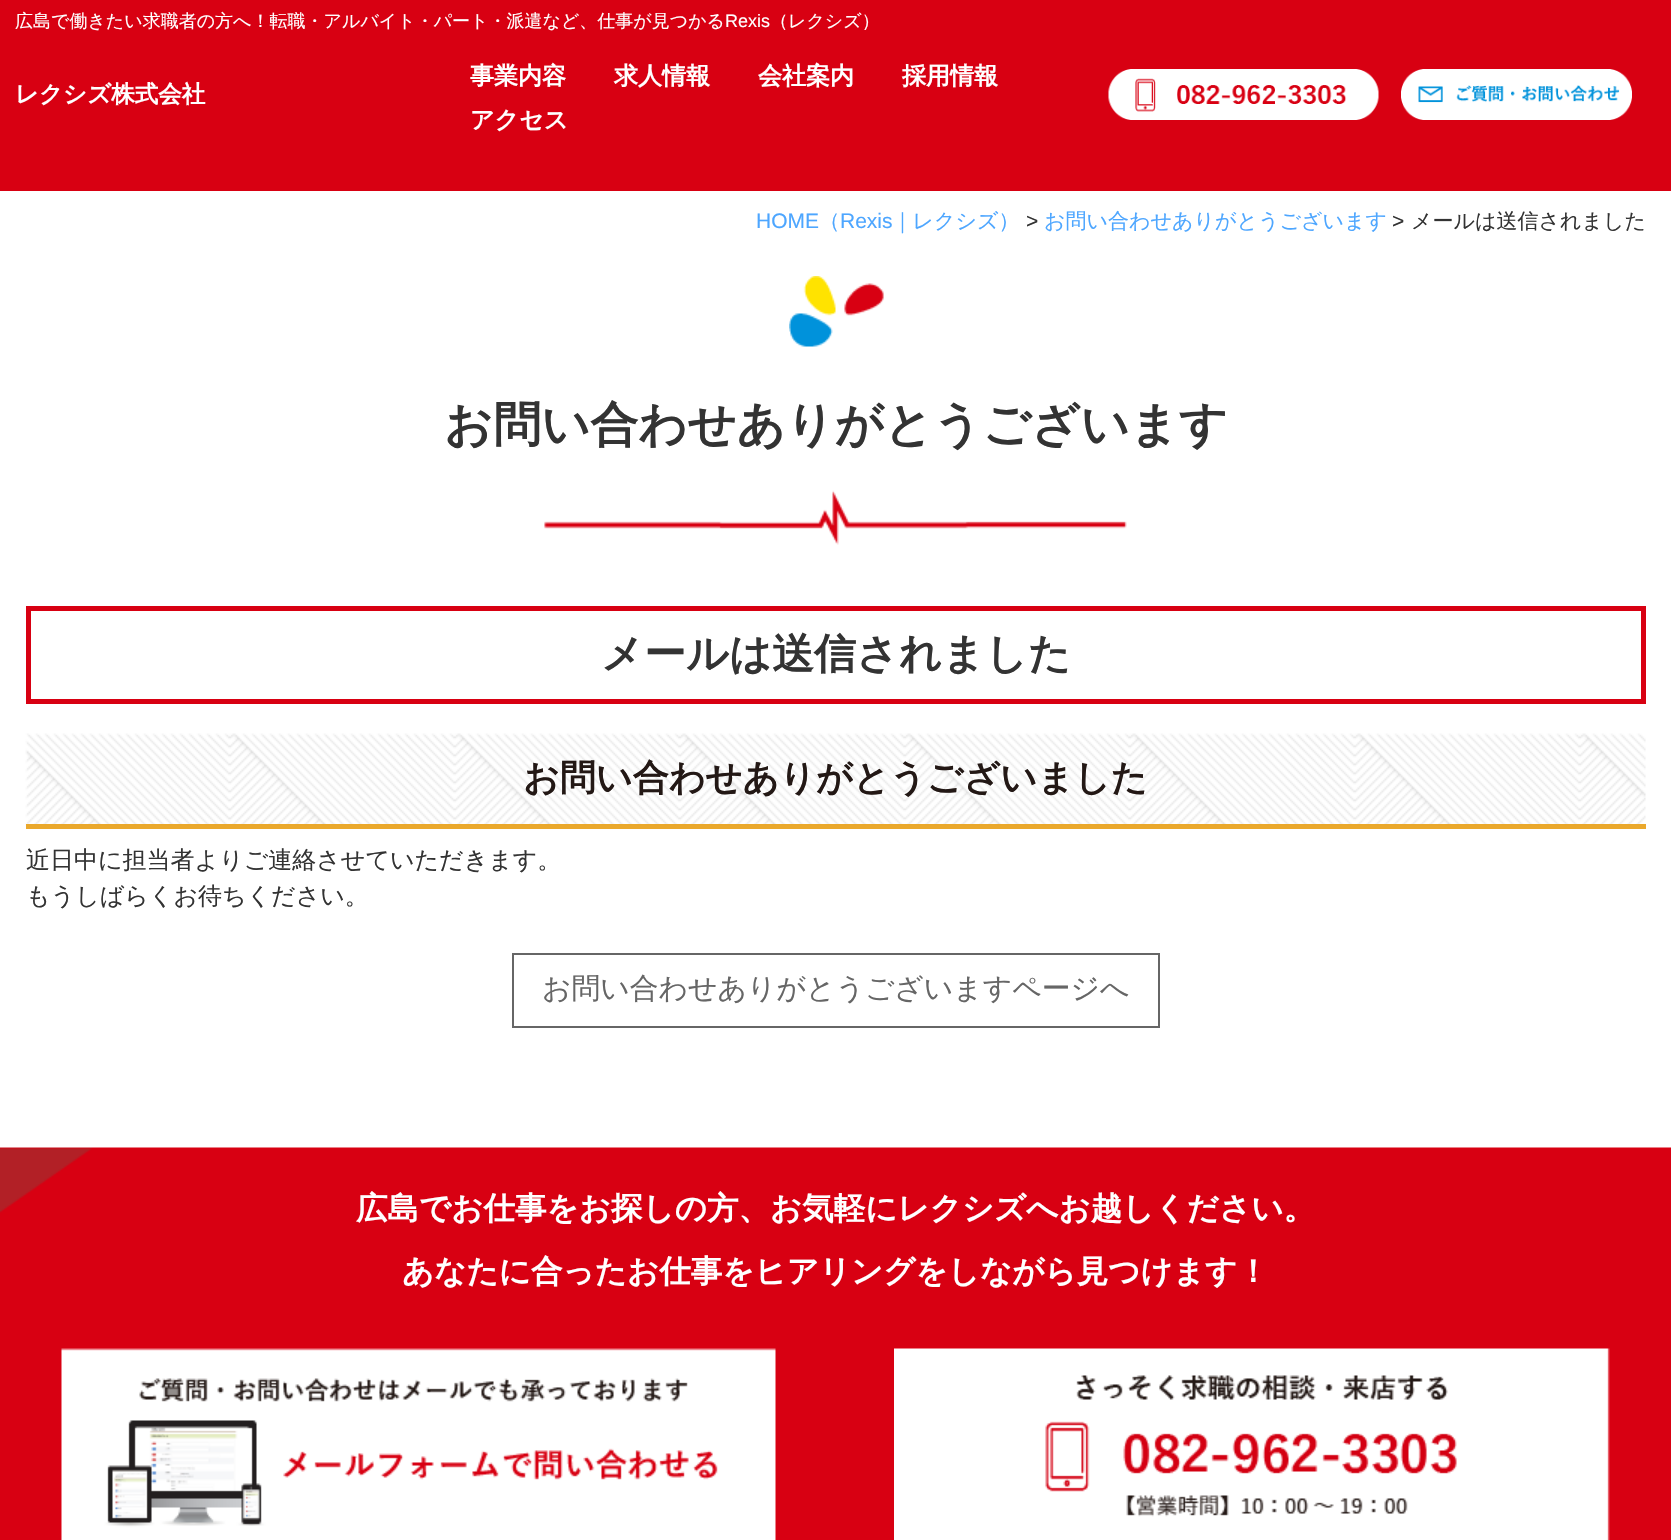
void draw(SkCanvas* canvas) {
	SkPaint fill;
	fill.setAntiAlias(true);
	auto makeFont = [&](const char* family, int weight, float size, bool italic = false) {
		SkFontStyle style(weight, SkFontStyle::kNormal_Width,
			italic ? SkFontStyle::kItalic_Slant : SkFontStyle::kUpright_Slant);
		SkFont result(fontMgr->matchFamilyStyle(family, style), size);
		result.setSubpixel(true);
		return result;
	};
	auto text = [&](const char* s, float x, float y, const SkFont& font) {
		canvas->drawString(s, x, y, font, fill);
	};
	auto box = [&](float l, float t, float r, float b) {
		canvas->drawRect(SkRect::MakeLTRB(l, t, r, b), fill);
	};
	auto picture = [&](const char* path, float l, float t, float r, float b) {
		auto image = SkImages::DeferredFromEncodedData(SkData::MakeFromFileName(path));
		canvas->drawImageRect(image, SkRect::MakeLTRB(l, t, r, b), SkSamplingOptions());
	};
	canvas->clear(0xFFFFFFFF);
	fill.setColor(0xFFD80012);
	box(0, 0, 1671, 191);
	picture("image0.png", 1108, 69, 1379, 120);
	picture("image1.png", 1401, 69, 1632, 120);
	picture("image2.png", 789, 276, 884, 347);
	picture("image3.png", 544, 490, 1127, 545);
	fill.setStyle(SkPaint::kStroke_Style);
	fill.setStrokeWidth(5);
	canvas->drawRect(SkRect::MakeLTRB(28.5f, 608.5f, 1643.5f, 701.5f), fill);
	picture("image4.png", 25, 733, 1646, 828);
	fill.setStyle(SkPaint::kFill_Style);
	fill.setColor(0xFFEAA82C);
	box(26, 824, 1646, 829);
	fill.setStyle(SkPaint::kStroke_Style);
	fill.setStrokeWidth(2);
	fill.setColor(0xFF666666);
	canvas->drawRect(SkRect::MakeLTRB(513, 954, 1159, 1027), fill);
	fill.setStyle(SkPaint::kFill_Style);
	fill.setColor(0xFFD80012);
	box(0, 1213, 1671, 1540);
	picture("image5.png", 0, 1147, 1671, 1213);
	picture("image6.png", 61, 1348, 776, 1540);
	picture("image7.png", 894, 1348, 1610, 1540);
	auto font1 = makeFont("WenQuanYi Zen Hei", 500, 18);
	fill.setColor(0xFFFFFFFF);
	text("広島で働きたい求職者の方へ！転職・アルバイト・パート・派遣など、仕事が見つかる", 15, 27, font1);
	auto font2 = makeFont("Liberation Sans", 400, 18);
	text("Rexis", 725, 27, font2);
	text("（レクシズ）", 770, 27, font1);
	auto font3 = makeFont("WenQuanYi Zen Hei", 700, 23.5f);
	text("レクシズ株式会社", 15, 102, font3);
	auto font4 = makeFont("WenQuanYi Zen Hei", 700, 24);
	text("事業内容", 470, 84, font4);
	text("求人情報", 614, 84, font4);
	text("会社案内", 758, 84, font4);
	text("採用情報", 902, 84, font4);
	text("アクセス", 470, 128, font4);
	auto font5 = makeFont("Liberation Sans", 400, 21);
	fill.setColor(0xFF4DA6FF);
	text("HOME", 756, 228, font5);
	auto font6 = makeFont("WenQuanYi Zen Hei", 500, 21);
	text("（", 819, 228, font6);
	text("Rexis", 840, 228, font5);
	text("｜レクシズ）", 892, 228, font6);
	fill.setColor(0xFF333333);
	text(">", 1026, 228, font5);
	fill.setColor(0xFF4DA6FF);
	text("お問い合わせありがとうございます", 1044, 228, font6);
	fill.setColor(0xFF333333);
	text(">", 1392, 228, font5);
	text("メールは送信されました", 1411, 228, font6);
	auto font7 = makeFont("WenQuanYi Zen Hei", 700, 48);
	text("お問い合わせありがとうございます", 444, 441, font7);
	auto font8 = makeFont("WenQuanYi Zen Hei", 700, 42);
	text("メールは送信されました", 601, 668, font8);
	auto font9 = makeFont("WenQuanYi Zen Hei", 700, 36);
	fill.setColor(0xFF231815);
	text("お問い合わせありがとうございました", 523, 790, font9);
	auto font10 = makeFont("WenQuanYi Zen Hei", 500, 24);
	fill.setColor(0xFF333333);
	text("近日中に担当者よりご連絡させていただきます。", 26, 868, font10);
	text("もうしばらくお待ちください。", 26, 904, font10);
	auto font11 = makeFont("WenQuanYi Zen Hei", 500, 28.8f);
	fill.setColor(0xFF666666);
	text("お問い合わせありがとうございますページへ", 542, 998, font11);
	auto font12 = makeFont("WenQuanYi Zen Hei", 700, 31.5f);
	fill.setColor(0xFFFFFFFF);
	text("広島でお仕事をお探しの方、お気軽にレクシズへお越しください。", 356, 1219, font12);
	text("あなたに合ったお仕事をヒアリングをしながら見つけます！", 402, 1282, font12);
}
